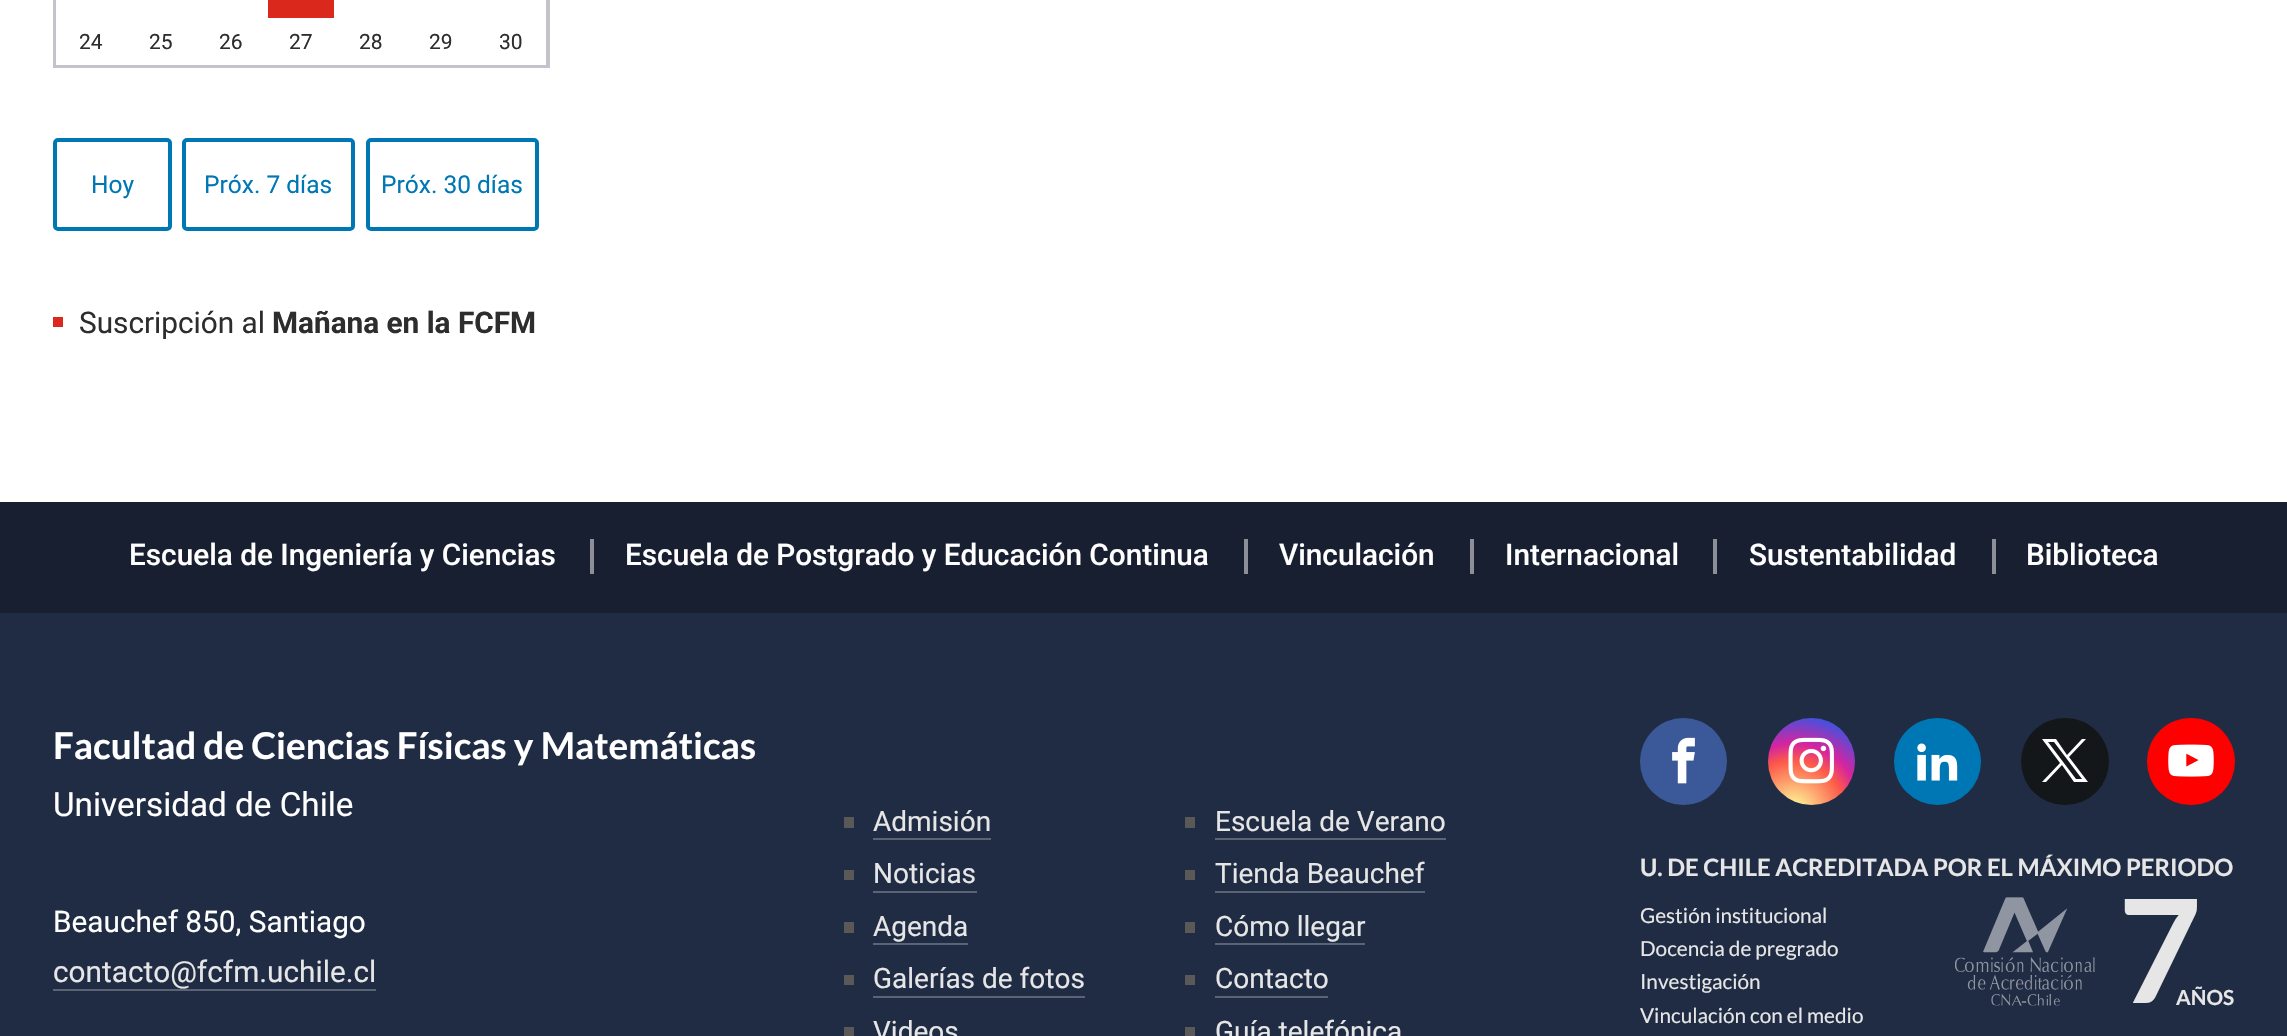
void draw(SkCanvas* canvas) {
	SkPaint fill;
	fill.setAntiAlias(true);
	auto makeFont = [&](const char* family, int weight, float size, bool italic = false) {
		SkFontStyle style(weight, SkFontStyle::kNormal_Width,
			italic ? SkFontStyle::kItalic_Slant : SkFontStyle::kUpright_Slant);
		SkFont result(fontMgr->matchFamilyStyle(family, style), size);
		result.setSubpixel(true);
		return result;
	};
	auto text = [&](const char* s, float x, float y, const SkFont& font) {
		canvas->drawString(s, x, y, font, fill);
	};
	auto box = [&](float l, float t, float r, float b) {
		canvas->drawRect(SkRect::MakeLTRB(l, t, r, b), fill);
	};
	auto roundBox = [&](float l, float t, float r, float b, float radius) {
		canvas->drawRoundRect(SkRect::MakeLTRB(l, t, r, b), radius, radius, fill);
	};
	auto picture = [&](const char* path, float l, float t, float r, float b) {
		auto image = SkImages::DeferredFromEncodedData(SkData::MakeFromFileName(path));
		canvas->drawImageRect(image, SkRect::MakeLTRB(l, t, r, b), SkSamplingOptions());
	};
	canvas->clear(0xFFFFFFFF);
	fill.setStyle(SkPaint::kStroke_Style);
	fill.setStrokeWidth(4);
	fill.setColor(0xFFC3C3CB);
	canvas->drawRect(SkRect::MakeLTRB(55, -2, 548, 66), fill);
	fill.setStyle(SkPaint::kFill_Style);
	fill.setColor(0xFFFFFFFF);
	box(56, 0, 546, 65);
	fill.setColor(0xFFDA291C);
	box(268, 0, 334, 18);
	fill.setStyle(SkPaint::kStroke_Style);
	fill.setColor(0xFF0077B5);
	canvas->drawRoundRect(SkRect::MakeLTRB(55, 140, 170, 229), 3, 3, fill);
	canvas->drawRoundRect(SkRect::MakeLTRB(184, 140, 353, 229), 3, 3, fill);
	canvas->drawRoundRect(SkRect::MakeLTRB(368, 140, 537, 229), 3, 3, fill);
	fill.setStyle(SkPaint::kFill_Style);
	fill.setColor(0xFFDA291C);
	box(53, 317, 63, 327);
	fill.setColor(0xFF202C44);
	box(0, 613, 2287, 1036);
	fill.setColor(0xFF181F31);
	box(0, 502, 2287, 613);
	fill.setColor(0xFF8C8F98);
	box(590, 539, 594, 574);
	box(1244, 539, 1248, 574);
	box(1470, 539, 1474, 574);
	box(1713, 539, 1717, 574);
	box(1992, 539, 1996, 574);
	fill.setColor(0xFF5B6475);
	box(53, 989, 376, 991);
	fill.setColor(0xFF5B5858);
	box(844, 817, 854, 828);
	fill.setColor(0xFF5B6475);
	box(873, 838, 991, 840);
	fill.setColor(0xFF5B5858);
	box(1185, 817, 1195, 828);
	fill.setColor(0xFF5B6475);
	box(1215, 838, 1446, 840);
	fill.setColor(0xFF5B5858);
	box(844, 870, 854, 880);
	fill.setColor(0xFF5B6475);
	box(873, 891, 977, 893);
	fill.setColor(0xFF5B5858);
	box(1185, 870, 1195, 880);
	fill.setColor(0xFF5B6475);
	box(1215, 891, 1425, 893);
	fill.setColor(0xFF5B5858);
	box(844, 922, 854, 933);
	fill.setColor(0xFF5B6475);
	box(873, 943, 968, 945);
	fill.setColor(0xFF5B5858);
	box(1185, 922, 1195, 933);
	fill.setColor(0xFF5B6475);
	box(1215, 943, 1365, 945);
	fill.setColor(0xFF5B5858);
	box(844, 975, 854, 985);
	fill.setColor(0xFF5B6475);
	box(873, 996, 1085, 998);
	fill.setColor(0xFF5B5858);
	box(1185, 975, 1195, 985);
	fill.setColor(0xFF5B6475);
	box(1215, 996, 1328, 998);
	fill.setColor(0xFF5B5858);
	box(844, 1027, 854, 1036);
	box(1185, 1027, 1195, 1036);
	fill.setColor(0xFF3B5998);
	canvas->drawCircle(1683.5f, 761.5f, 43.5f, fill);
	picture("image0.png", 1672, 737, 1695, 784);
	{
		const SkColor colors[] = {0xFFFDF497, 0xFFFDF497, 0xFFFD5949, 0xFFD6249F, 0xFF285AEB};
		const float stops[] = {0, 0.05f, 0.45f, 0.6f, 0.9f};
		fill.setShader(SkGradientShader::MakeRadial({1794, 811}, 112, colors, stops, 5, SkTileMode::kClamp));
		fill.setAlpha(255);
	}
	canvas->drawCircle(1811.5f, 761.5f, 43.5f, fill);
	picture("image1.png", 1788, 737, 1834, 784);
	fill.setShader(nullptr);
	fill.setColor(0xFF0077B5);
	canvas->drawCircle(1937.5f, 761.5f, 43.5f, fill);
	picture("image2.png", 1917, 743, 1958, 781);
	fill.setColor(0xFF14171A);
	roundBox(2021, 718, 2109, 805, 43.5f);
	fill.setColor(0xFFFFFFFF);
	canvas->drawPath(SkPathBuilder().moveTo(2042, 739).lineTo(2060, 763).lineTo(2042, 782).lineTo(2046, 782).lineTo(2062, 765).lineTo(2074, 782).lineTo(2088, 782).lineTo(2069, 757).lineTo(2086, 739).lineTo(2082, 739).lineTo(2067, 755).lineTo(2056, 739).close().moveTo(2048, 742).lineTo(2054, 742).lineTo(2082, 779).lineTo(2076, 779).close().detach(), fill);
	fill.setColor(0xFFFF0000);
	roundBox(2147, 718, 2235, 805, 43.5f);
	picture("image3.png", 2168, 744, 2214, 777);
	picture("image4.png", 1955, 897, 2095, 1006);
	auto font1 = makeFont("Roboto", 400, 21);
	fill.setColor(0xFF2D2D2D);
	text("24", 79, 49, font1);
	text("25", 149, 49, font1);
	text("26", 219, 49, font1);
	text("27", 289, 49, font1);
	text("28", 359, 49, font1);
	text("29", 429, 49, font1);
	text("30", 499, 49, font1);
	auto font2 = makeFont("Roboto", 400, 24.5f);
	fill.setColor(0xFF0077B5);
	text("Hoy", 91, 193, font2);
	text("Próx. 7 días", 204, 193, font2);
	text("Próx. 30 días", 381, 193, font2);
	auto font3 = makeFont("Roboto", 400, 29.75f);
	fill.setColor(0xFF2D2D2D);
	text("Suscripción al", 79, 333, font3);
	auto font4 = makeFont("Roboto", 700, 29.75f);
	text("Mañana en la FCFM", 272, 333, font4);
	auto font5 = makeFont("Roboto", 500, 29.75f);
	fill.setColor(0xFFFFFFFF);
	text("Escuela de Ingeniería y Ciencias", 129, 565, font5);
	text("Escuela de Postgrado y Educación Continua", 625, 565, font5);
	text("Vinculación", 1279, 565, font5);
	text("Internacional", 1505, 565, font5);
	text("Sustentabilidad", 1749, 565, font5);
	text("Biblioteca", 2026, 565, font5);
	auto font6 = makeFont("Lato", 700, 36.9f);
	text("Facultad de Ciencias Físicas y Matemáticas", 53, 759, font6);
	auto font7 = makeFont("Roboto", 400, 33.25f);
	text("Universidad de Chile", 53, 816, font7);
	text("Beauchef 850, Santiago", 53, 932, font3);
	fill.setColor(0xFFE6E6E6);
	text("contacto@fcfm.uchile.cl", 53, 982, font3);
	auto font8 = makeFont("Roboto", 400, 28);
	text("Admisión", 873, 831, font8);
	text("Escuela de Verano", 1215, 831, font8);
	text("Noticias", 873, 883, font8);
	text("Tienda Beauchef", 1215, 883, font8);
	text("Agenda", 873, 936, font8);
	text("Cómo llegar", 1215, 936, font8);
	text("Galerías de fotos", 873, 988, font8);
	text("Contacto", 1215, 988, font8);
	text("Videos", 873, 1041, font8);
	text("Guía telefónica", 1215, 1041, font8);
	auto font9 = makeFont("Lato", 700, 23.8f);
	text("U. DE CHILE ACREDITADA POR EL MÁXIMO PERIODO", 1640, 876, font9);
	auto font10 = makeFont("Lato", 400, 20.75f);
	text("Gestión institucional", 1640, 923, font10);
	text("Docencia de pregrado", 1640, 956, font10);
	text("Investigación", 1640, 989, font10);
	text("Vinculación con el medio", 1640, 1023, font10);
	auto font11 = makeFont("Lato", 700, 144);
	text("7", 2118, 1003, font11);
	auto font12 = makeFont("Lato", 700, 20.75f);
	text("AÑOS", 2176, 1005, font12);
}
